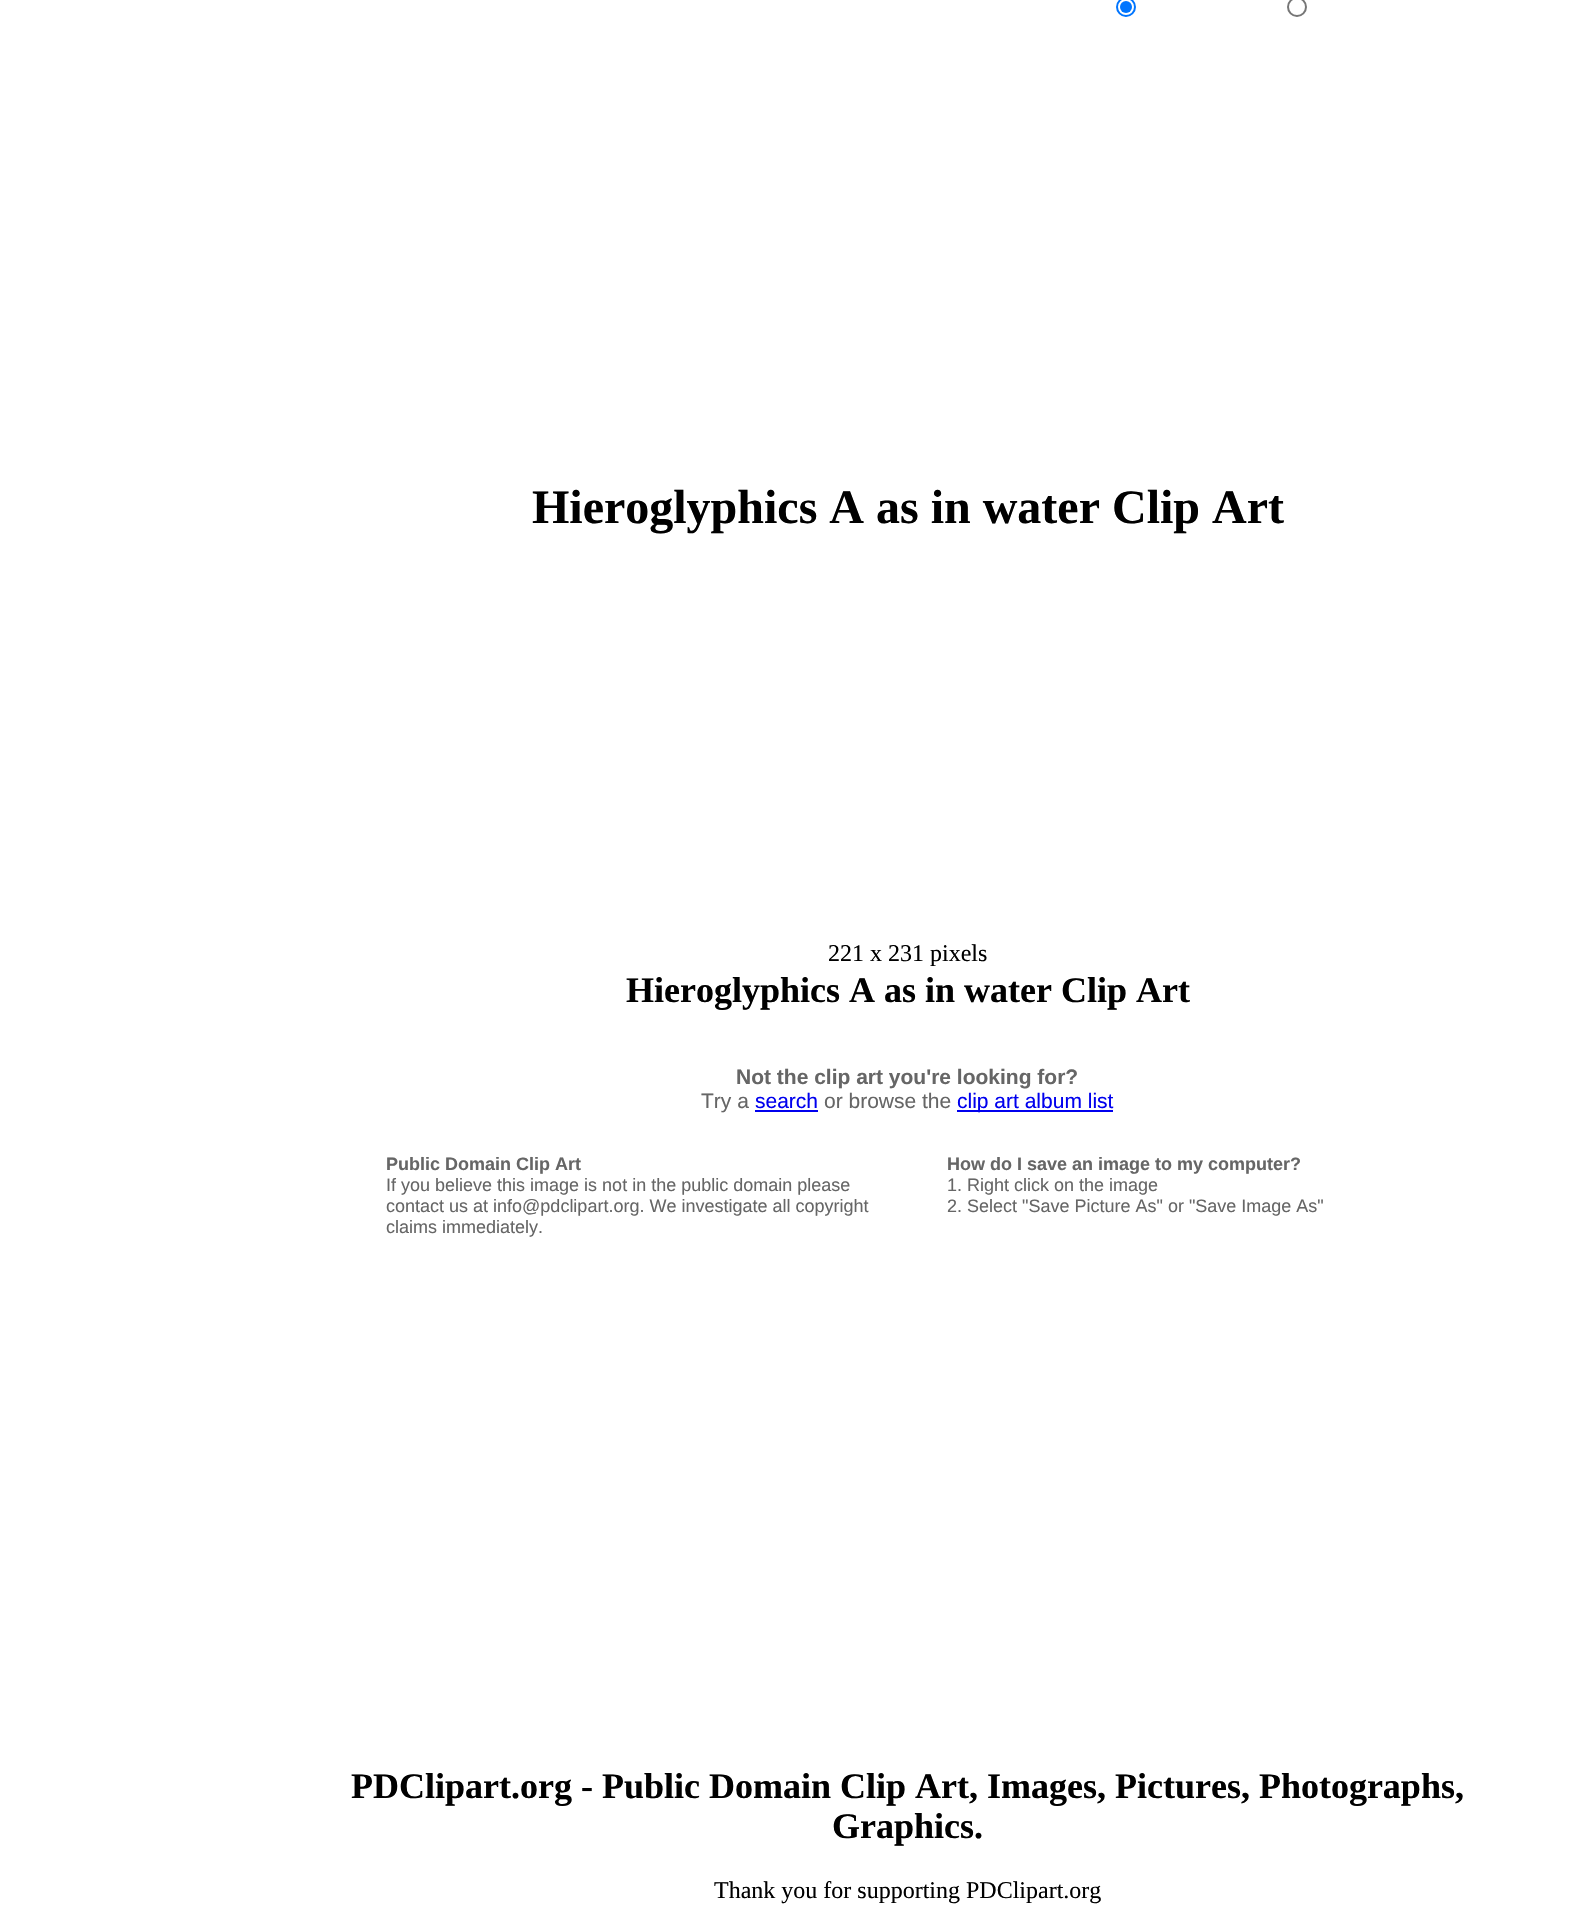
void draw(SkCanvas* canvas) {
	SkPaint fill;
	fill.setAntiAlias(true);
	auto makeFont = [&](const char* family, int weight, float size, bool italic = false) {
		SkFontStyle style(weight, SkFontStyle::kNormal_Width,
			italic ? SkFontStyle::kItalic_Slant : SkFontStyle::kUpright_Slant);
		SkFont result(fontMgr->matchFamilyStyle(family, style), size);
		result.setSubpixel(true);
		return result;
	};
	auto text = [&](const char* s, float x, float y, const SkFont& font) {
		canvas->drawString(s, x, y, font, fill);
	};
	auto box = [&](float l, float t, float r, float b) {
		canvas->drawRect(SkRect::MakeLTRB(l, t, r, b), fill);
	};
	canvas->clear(0xFFFFFFFF);
	fill.setStyle(SkPaint::kStroke_Style);
	fill.setStrokeWidth(2);
	fill.setColor(0xFF0075FF);
	canvas->drawCircle(1126, 7, 9, fill);
	fill.setStyle(SkPaint::kFill_Style);
	canvas->drawCircle(1126, 7, 6, fill);
	fill.setStyle(SkPaint::kStroke_Style);
	fill.setColor(0xFF767676);
	canvas->drawCircle(1297, 7, 9, fill);
	fill.setStyle(SkPaint::kFill_Style);
	fill.setColor(0xFF0000EE);
	box(755, 1110, 818, 1112);
	box(957, 1110, 1113, 1112);
	auto font1 = makeFont("Liberation Serif", 700, 48);
	fill.setColor(0xFF000000);
	text("Hieroglyphics A as in water Clip Art", 532, 523, font1);
	auto font2 = makeFont("Liberation Serif", 400, 24);
	text("221 x 231 pixels", 828, 961, font2);
	auto font3 = makeFont("Liberation Serif", 700, 36);
	text("Hieroglyphics A as in water Clip Art", 626, 1002, font3);
	auto font4 = makeFont("Liberation Sans", 700, 21);
	fill.setColor(0xFF666666);
	text("Not the clip art you're looking for?", 736, 1084, font4);
	auto font5 = makeFont("Liberation Sans", 400, 21);
	text("Try a", 701, 1108, font5);
	fill.setColor(0xFF0000EE);
	text("search", 755, 1108, font5);
	fill.setColor(0xFF666666);
	text("or browse the", 824, 1108, font5);
	fill.setColor(0xFF0000EE);
	text("clip art album list", 957, 1108, font5);
	auto font6 = makeFont("Liberation Sans", 700, 18);
	fill.setColor(0xFF666666);
	text("Public Domain Clip Art", 386, 1170, font6);
	auto font7 = makeFont("Liberation Sans", 400, 18);
	text("If you believe this image is not in the public domain please", 386, 1191, font7);
	text("contact us at info@pdclipart.org. We investigate all copyright", 386, 1212, font7);
	text("claims immediately.", 386, 1233, font7);
	text("How do I save an image to my computer?", 947, 1170, font6);
	text("1. Right click on the image", 947, 1191, font7);
	text("2. Select \"Save Picture As\" or \"Save Image As\"", 947, 1212, font7);
	fill.setColor(0xFF000000);
	text("PDClipart.org - Public Domain Clip Art, Images, Pictures, Photographs,", 351, 1798, font3);
	text("Graphics.", 832, 1838, font3);
	text("Thank you for supporting PDClipart.org", 714, 1898, font2);
}
